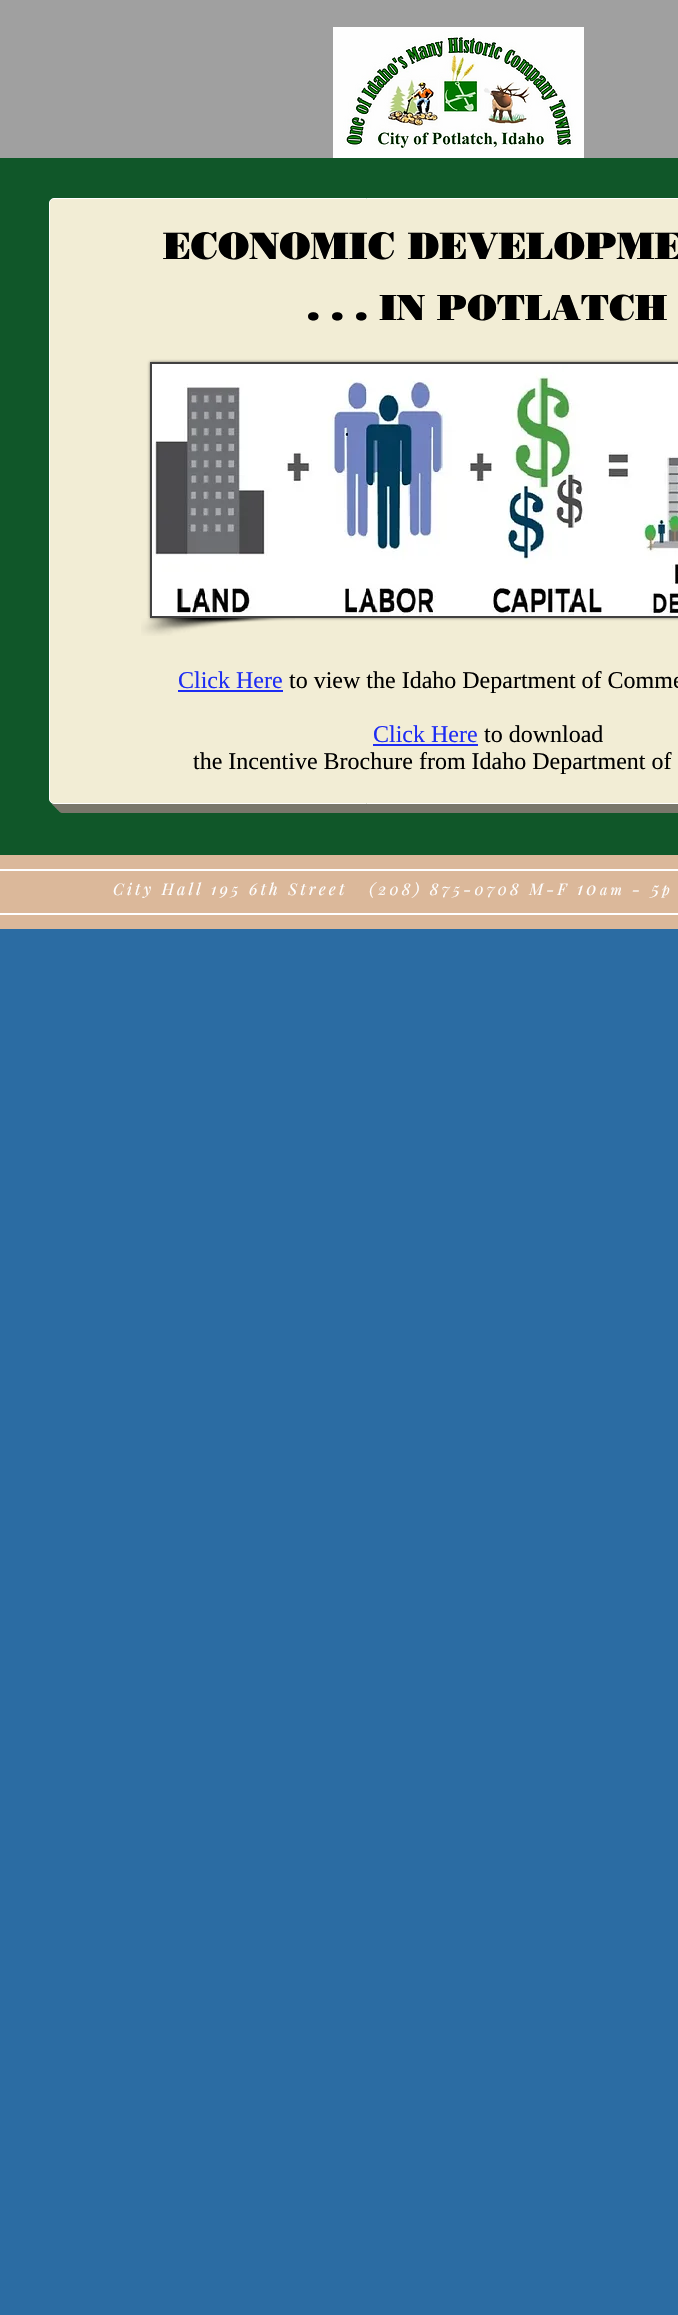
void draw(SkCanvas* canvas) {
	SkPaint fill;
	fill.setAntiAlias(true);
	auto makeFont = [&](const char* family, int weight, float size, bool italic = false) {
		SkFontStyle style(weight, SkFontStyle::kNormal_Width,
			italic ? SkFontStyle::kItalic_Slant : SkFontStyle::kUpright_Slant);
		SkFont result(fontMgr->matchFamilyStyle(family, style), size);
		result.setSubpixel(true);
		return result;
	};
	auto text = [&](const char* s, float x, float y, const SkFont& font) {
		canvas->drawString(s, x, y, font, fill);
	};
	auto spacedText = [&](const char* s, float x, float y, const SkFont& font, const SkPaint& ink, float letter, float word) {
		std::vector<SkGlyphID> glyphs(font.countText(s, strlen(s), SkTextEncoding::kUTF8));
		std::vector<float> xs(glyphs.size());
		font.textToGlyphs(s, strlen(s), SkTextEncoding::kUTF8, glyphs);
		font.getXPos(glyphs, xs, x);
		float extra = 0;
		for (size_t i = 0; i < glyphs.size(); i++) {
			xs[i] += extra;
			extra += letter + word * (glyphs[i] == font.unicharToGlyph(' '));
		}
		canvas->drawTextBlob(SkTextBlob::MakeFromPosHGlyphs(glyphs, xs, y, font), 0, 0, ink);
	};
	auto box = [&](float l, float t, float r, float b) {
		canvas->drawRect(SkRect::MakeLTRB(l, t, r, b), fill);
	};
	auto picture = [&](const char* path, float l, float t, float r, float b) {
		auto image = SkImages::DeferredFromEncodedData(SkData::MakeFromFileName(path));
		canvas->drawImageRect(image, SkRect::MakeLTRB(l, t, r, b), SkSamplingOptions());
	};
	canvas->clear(0xFF2B6CA3);
	fill.setColor(0xFFA0A0A0);
	box(0, 0, 678, 158);
	picture("image0.png", 333, 27, 584, 158);
	fill.setColor(0xFF105729);
	box(0, 158, 678, 855);
	fill.setColor(0xFF79776B);
	canvas->drawPath(SkPathBuilder().moveTo(58, 804).lineTo(58, 808).cubicTo(58, 811, 60, 813, 63, 813).lineTo(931, 813).cubicTo(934, 813, 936, 811, 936, 808).lineTo(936, 212).cubicTo(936, 209, 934, 207, 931, 207).lineTo(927, 207).lineTo(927, 799).cubicTo(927, 802, 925, 804, 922, 804).close().detach(), fill);
	canvas->drawPath(SkPathBuilder().moveTo(56, 804).lineTo(56, 806).cubicTo(56, 809, 58, 811, 61, 811).lineTo(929, 811).cubicTo(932, 811, 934, 809, 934, 806).lineTo(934, 210).cubicTo(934, 207, 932, 205, 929, 205).lineTo(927, 205).lineTo(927, 799).cubicTo(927, 802, 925, 804, 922, 804).close().detach(), fill);
	canvas->drawPath(SkPathBuilder().moveTo(54, 804).cubicTo(54, 807, 56, 809, 59, 809).lineTo(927, 809).cubicTo(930, 809, 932, 807, 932, 804).lineTo(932, 208).cubicTo(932, 205, 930, 203, 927, 203).lineTo(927, 799).cubicTo(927, 802, 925, 804, 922, 804).close().detach(), fill);
	canvas->drawPath(SkPathBuilder().moveTo(52, 804).cubicTo(53, 806, 55, 807, 57, 807).lineTo(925, 807).cubicTo(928, 807, 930, 805, 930, 802).lineTo(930, 206).cubicTo(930, 204, 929, 202, 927, 201).lineTo(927, 799).cubicTo(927, 802, 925, 804, 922, 804).close().detach(), fill);
	canvas->drawPath(SkPathBuilder().moveTo(51, 803).cubicTo(52, 804, 53, 805, 55, 805).lineTo(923, 805).cubicTo(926, 805, 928, 803, 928, 800).lineTo(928, 204).cubicTo(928, 202, 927, 201, 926, 200).cubicTo(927, 201, 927, 202, 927, 203).lineTo(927, 799).cubicTo(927, 802, 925, 804, 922, 804).lineTo(54, 804).cubicTo(53, 804, 52, 804, 51, 803).close().detach(), fill);
	fill.setColor(0xFFF2EDD5);
	canvas->drawRoundRect(SkRect::MakeLTRB(49.5f, 198.5f, 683.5f, 803.5f), 4.5f, 4.5f, fill);
	fill.setStyle(SkPaint::kStroke_Style);
	fill.setStrokeWidth(1);
	fill.setColor(0xFFFFFFFF);
	canvas->drawRoundRect(SkRect::MakeLTRB(49.5f, 198.5f, 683.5f, 803.5f), 4.5f, 4.5f, fill);
	fill.setStyle(SkPaint::kFill_Style);
	fill.setColor(0x80000000);
	fill.setMaskFilter(SkMaskFilter::MakeBlur(kNormal_SkBlurStyle, 1.5f));
	canvas->drawRect(SkRect::MakeLTRB(150, 362, 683, 618), fill);
	fill.setMaskFilter(nullptr);
	fill.setColor(0xFF414141);
	box(150, 362, 678, 618);
	picture("image1.png", 152, 364, 678, 616);
	picture("image2.png", 141, 618, 295, 636);
	fill.setColor(0xFF1D2CF3);
	box(178, 690, 283, 692);
	box(373, 744, 478, 746);
	fill.setColor(0xFFDBB89A);
	box(0, 855, 678, 929);
	fill.setColor(0xFFFFFFFF);
	box(0, 869, 678, 871);
	box(0, 913, 678, 915);
	auto font1 = makeFont("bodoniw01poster", 900, 38);
	fill.setColor(0xFF000000);
	text("ECONOMIC DEVELOPME", 163, 259, font1);
	auto font2 = makeFont("Liberation Serif", 400, 24);
	fill.setColor(0xFF1D2CF3);
	text("Click Here", 178, 688, font2);
	fill.setColor(0xFF000000);
	text("to view the Idaho Department of Comme", 289, 688, font2);
	fill.setColor(0xFF1D2CF3);
	text("Click Here", 373, 742, font2);
	fill.setColor(0xFF000000);
	text("to download", 484, 742, font2);
	text("the Incentive Brochure from Idaho Department of", 193, 769, font2);
	auto font3 = makeFont("bodoniw01poster", 900, 36);
	text(". . . IN POTLATCH", 307, 320, font3);
	auto font4 = makeFont("Playfair Display", 400, 16, true);
	fill.setColor(0xFFFFFFFF);
	spacedText("City Hall 195 6th Street   (208) 875-0708 M-F", 113, 895, font4, fill, 3.2f, 0);
	auto font5 = makeFont("Playfair Display", 400, 18, true);
	spacedText("10", 577, 895, font5, fill, 3.2f, 0);
	auto font6 = makeFont("Playfair Display", 400, 14, true);
	spacedText("am", 600, 895, font6, fill, 3.2f, 0);
	spacedText("-", 632, 895, font4, fill, 3.2f, 0);
	spacedText("5", 651, 895, font5, fill, 3.2f, 0);
	spacedText("p", 662, 895, font6, fill, 3.2f, 0);
}
